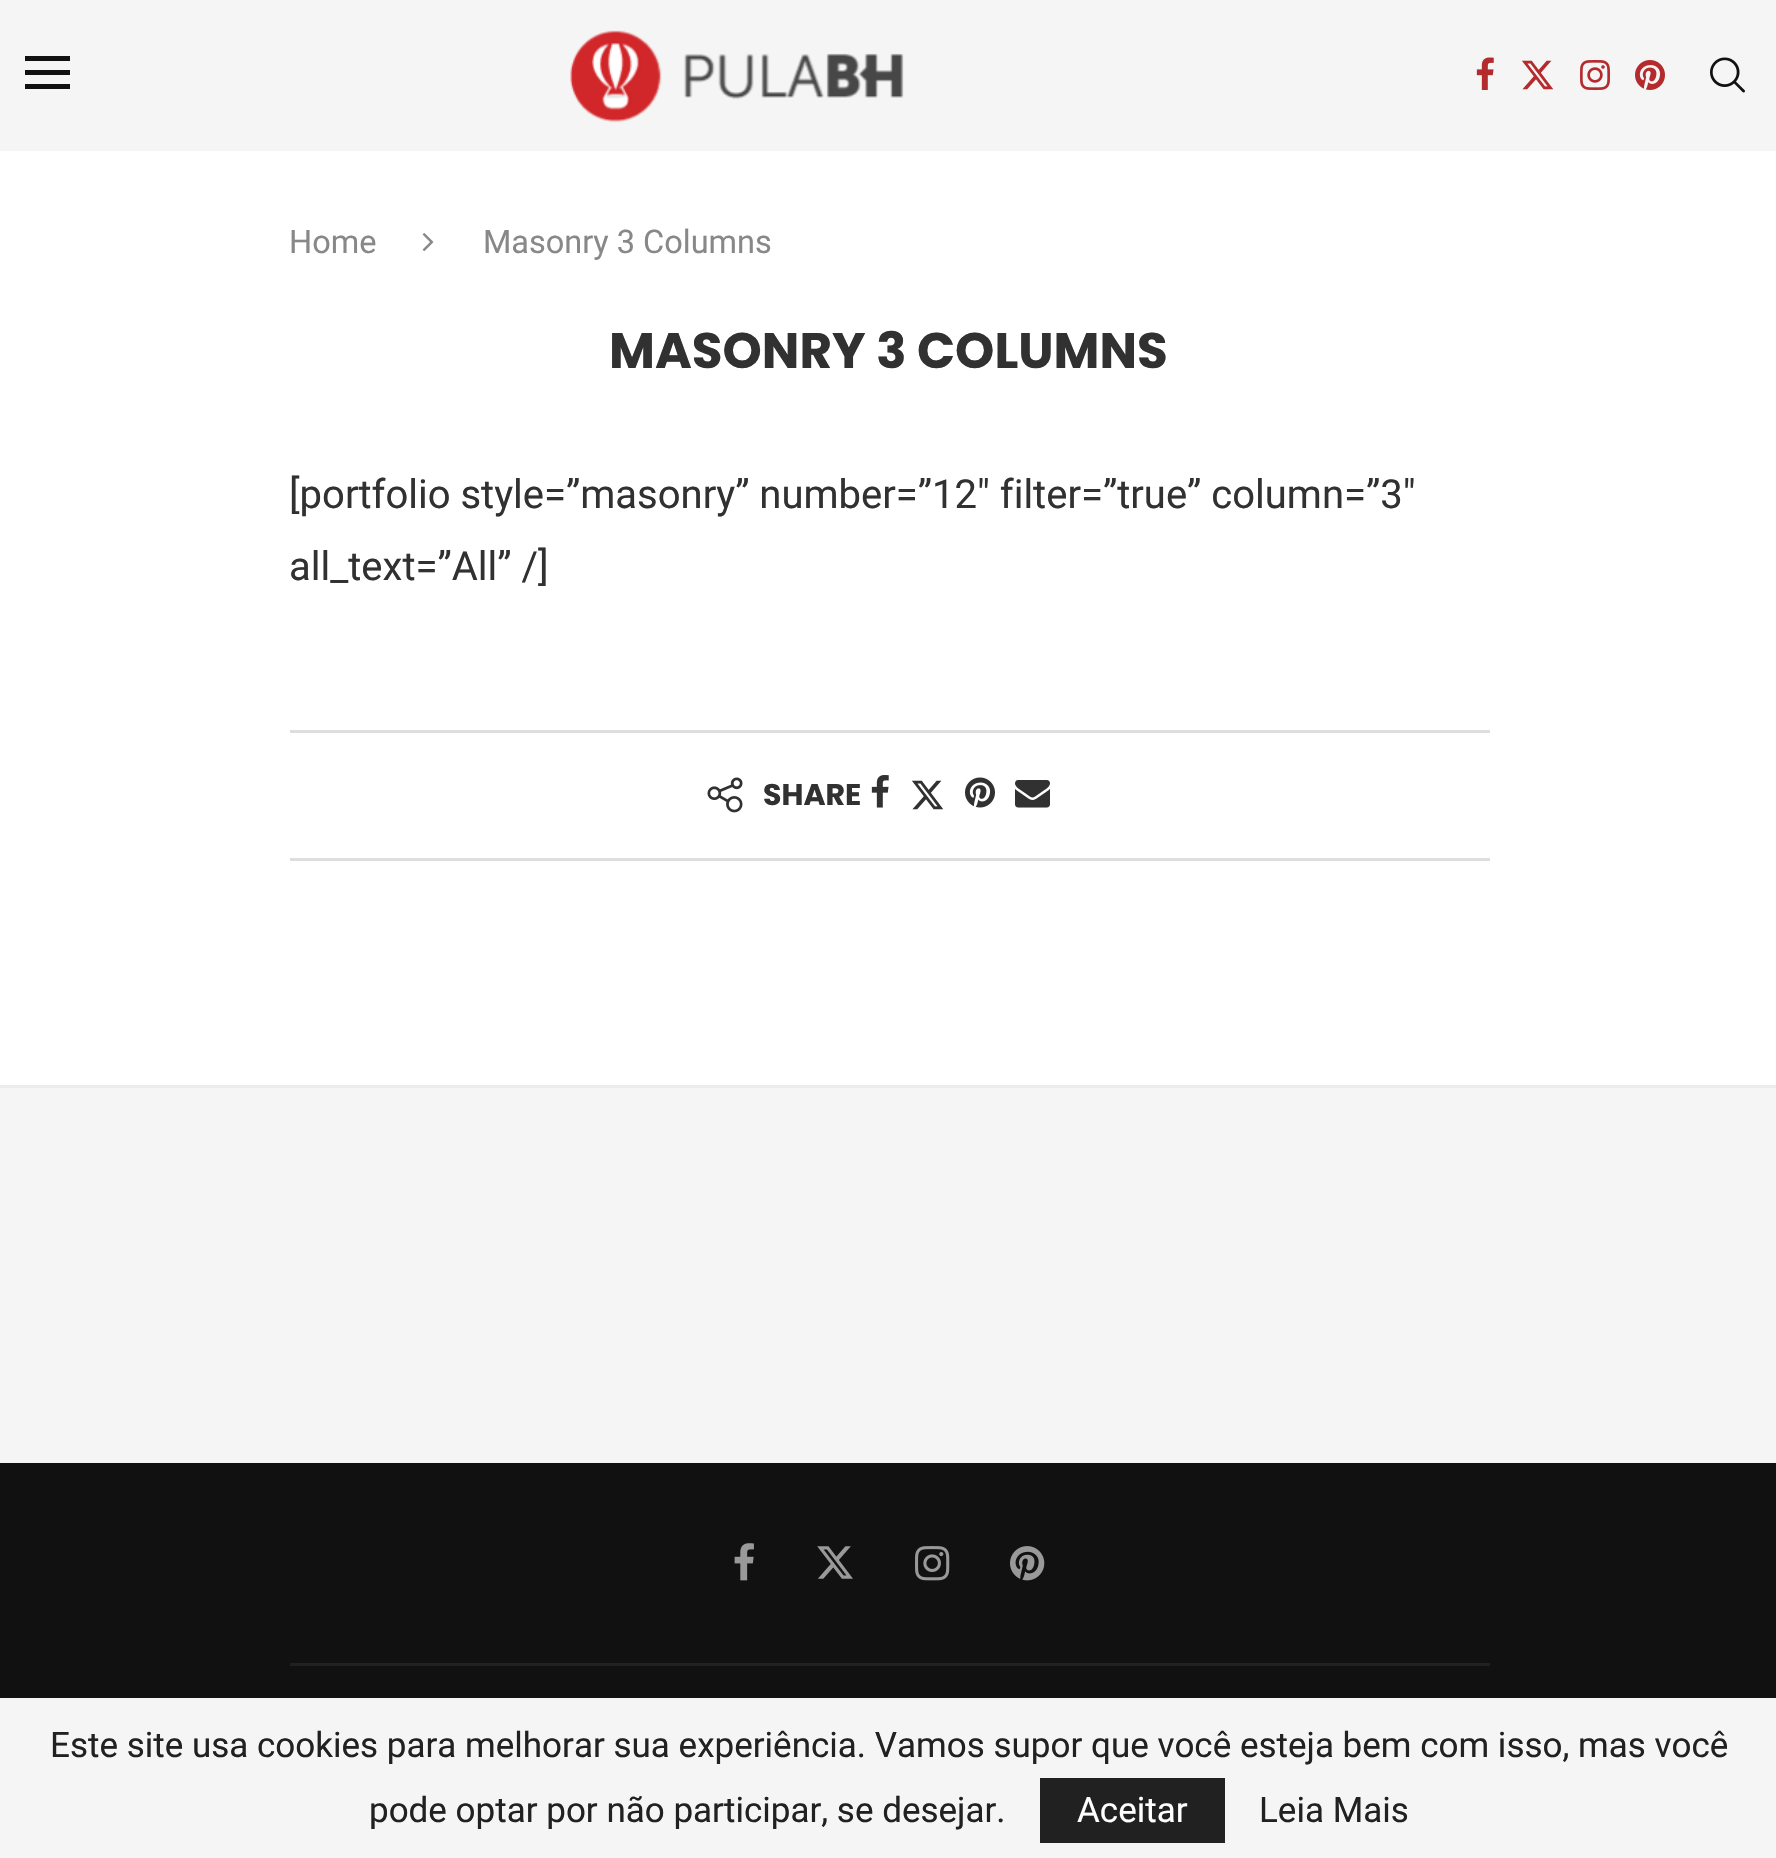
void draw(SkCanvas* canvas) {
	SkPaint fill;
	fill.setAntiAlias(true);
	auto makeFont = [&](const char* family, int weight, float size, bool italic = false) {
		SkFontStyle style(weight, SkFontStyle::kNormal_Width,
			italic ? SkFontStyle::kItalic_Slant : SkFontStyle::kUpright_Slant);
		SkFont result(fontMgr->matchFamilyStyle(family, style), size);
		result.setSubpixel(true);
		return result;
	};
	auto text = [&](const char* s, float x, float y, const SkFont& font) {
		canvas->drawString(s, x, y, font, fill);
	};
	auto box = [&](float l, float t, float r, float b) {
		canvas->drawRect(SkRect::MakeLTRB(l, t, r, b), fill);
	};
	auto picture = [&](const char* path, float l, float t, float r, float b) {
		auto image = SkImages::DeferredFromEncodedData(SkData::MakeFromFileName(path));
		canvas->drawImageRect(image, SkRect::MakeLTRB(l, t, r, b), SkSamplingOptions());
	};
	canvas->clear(0xFFFFFFFF);
	fill.setColor(0xFFF5F5F5);
	box(0, 0, 1776, 151);
	fill.setColor(0xFF111111);
	box(25, 56, 70, 61);
	box(25, 70, 70, 75);
	box(25, 84, 70, 89);
	picture("image0.png", 570, 30, 904, 123);
	picture("image1.png", 1476, 57, 1494, 90);
	picture("image2.png", 1522, 60, 1554, 90);
	picture("image3.png", 1580, 60, 1610, 90);
	picture("image4.png", 1635, 60, 1665, 90);
	picture("image5.png", 1710, 57, 1745, 93);
	picture("image6.png", 422, 233, 434, 251);
	fill.setColor(0xFFDEDEDE);
	box(290, 730, 1490, 733);
	box(290, 858, 1490, 861);
	picture("image7.png", 707, 777, 743, 813);
	picture("image8.png", 871, 775, 889, 808);
	picture("image9.png", 912, 780, 944, 810);
	picture("image10.png", 965, 777, 995, 808);
	picture("image11.png", 1015, 780, 1050, 808);
	fill.setColor(0xFFF5F5F5);
	box(0, 1088, 1776, 1463);
	fill.setColor(0xFFECECEC);
	box(0, 1085, 1776, 1088);
	fill.setColor(0xFF111111);
	box(0, 1463, 1776, 1698);
	fill.setColor(0xFF212121);
	box(290, 1663, 1490, 1666);
	picture("image12.png", 734, 1543, 754, 1581);
	picture("image13.png", 817, 1546, 853, 1579);
	picture("image14.png", 915, 1546, 950, 1581);
	picture("image15.png", 1010, 1546, 1045, 1581);
	fill.setColor(0xFFF5F5F5);
	box(0, 1698, 1776, 1858);
	fill.setColor(0xFF212121);
	box(1040, 1778, 1225, 1843);
	auto font1 = makeFont("Roboto", 400, 32.5f);
	fill.setColor(0xFF888888);
	text("Home", 289, 253, font1);
	text("Masonry 3 Columns", 483, 253, font1);
	auto font2 = makeFont("Poppins", 700, 50);
	fill.setColor(0xFF313131);
	text("MASONRY 3 COLUMNS", 609, 368, font2);
	auto font3 = makeFont("Roboto", 400, 40);
	text("[portfolio style=”masonry” number=”12″ filter=”true” column=”3″", 289, 508, font3);
	text("all_text=”All” /]", 289, 580, font3);
	auto font4 = makeFont("Poppins", 700, 30);
	text("SHARE", 763, 805, font4);
	auto font5 = makeFont("Roboto", 400, 35);
	fill.setColor(0xFF212121);
	text("Este site usa cookies para melhorar sua experiência. Vamos supor que você esteja bem com isso, mas você", 50, 1757, font5);
	text("pode optar por não participar, se desejar.", 369, 1822, font5);
	fill.setColor(0xFFFFFFFF);
	text("Aceitar", 1077, 1822, font5);
	fill.setColor(0xFF212121);
	text("Leia Mais", 1259, 1822, font5);
}
